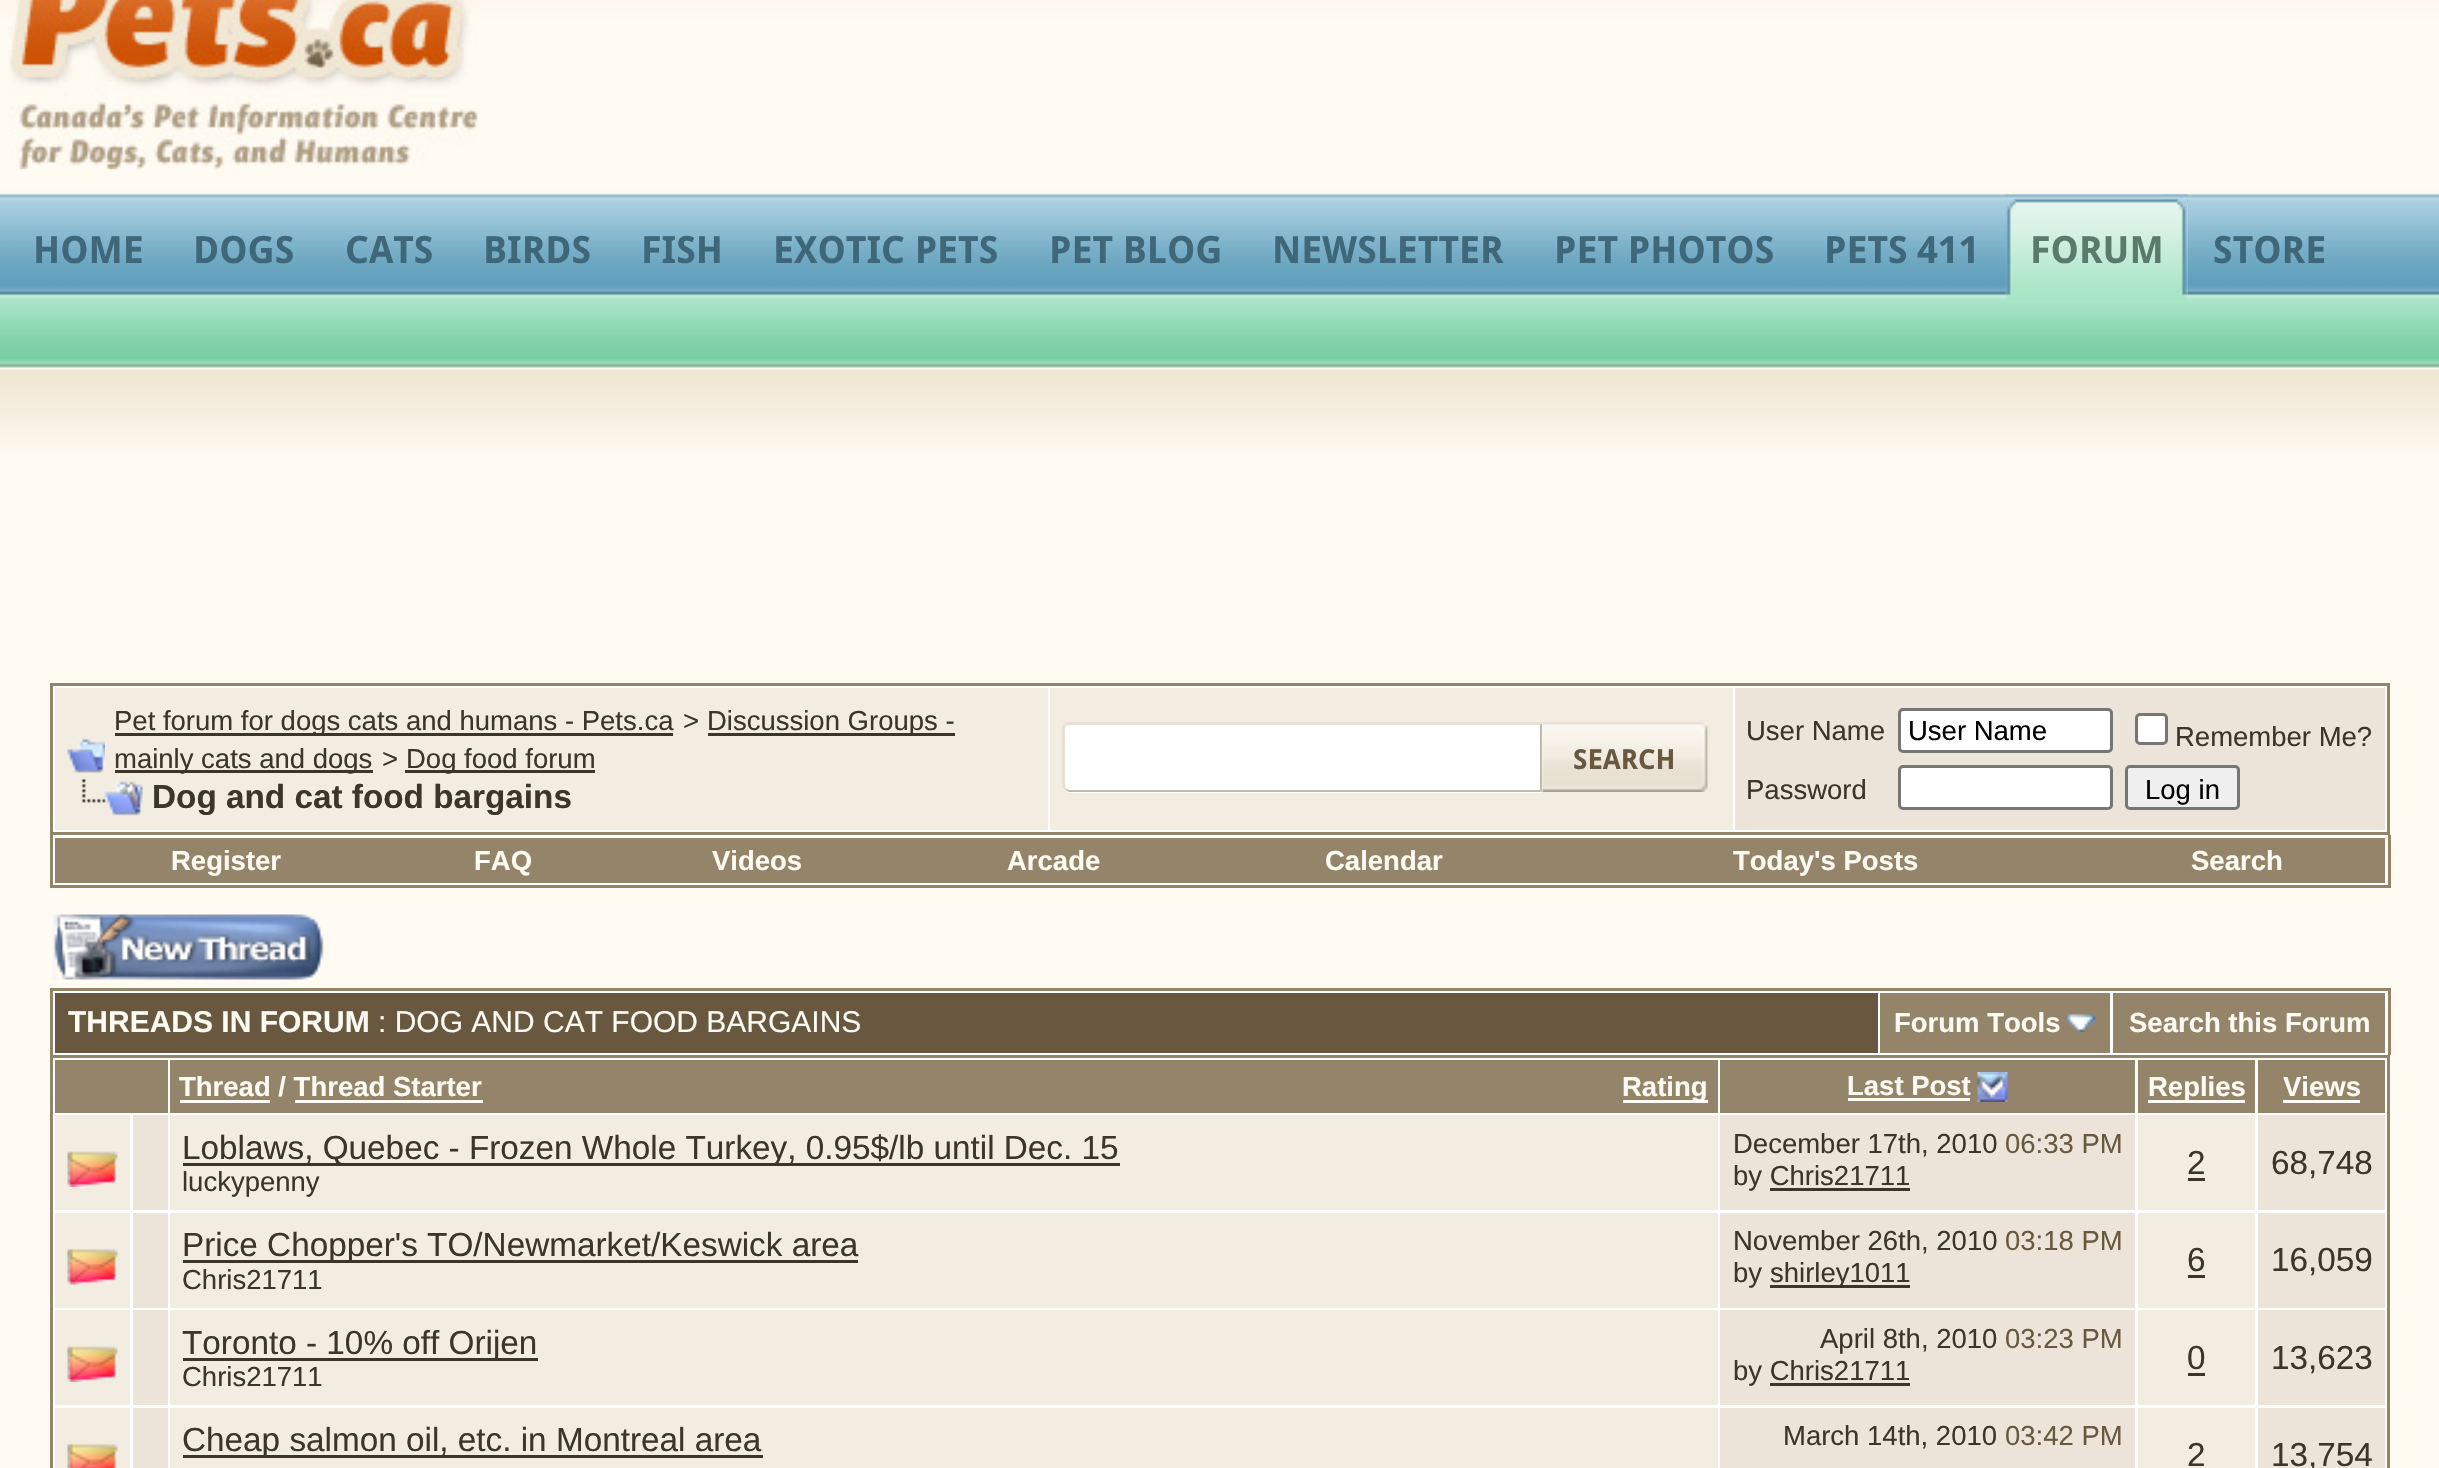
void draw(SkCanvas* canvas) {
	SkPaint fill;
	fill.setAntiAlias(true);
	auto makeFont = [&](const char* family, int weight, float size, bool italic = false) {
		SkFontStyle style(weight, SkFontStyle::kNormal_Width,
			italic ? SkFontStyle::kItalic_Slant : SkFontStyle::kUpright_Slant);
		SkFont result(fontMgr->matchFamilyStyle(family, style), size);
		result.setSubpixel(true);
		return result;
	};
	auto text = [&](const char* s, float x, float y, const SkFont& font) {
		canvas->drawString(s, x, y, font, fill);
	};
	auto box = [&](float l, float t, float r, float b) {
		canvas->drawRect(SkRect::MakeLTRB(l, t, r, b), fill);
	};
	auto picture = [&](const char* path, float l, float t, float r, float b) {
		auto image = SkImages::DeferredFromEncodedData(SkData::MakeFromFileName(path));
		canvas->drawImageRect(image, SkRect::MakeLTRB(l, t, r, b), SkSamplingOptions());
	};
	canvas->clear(0xFFFFFAF2);
	picture("image0.png", 0, 0, 2439, 452);
	picture("image1.png", 8, 0, 478, 170);
	picture("image2.png", 2005, 194, 2188, 300);
	picture("image3.png", 2162, 194, 2188, 300);
	fill.setColor(0xFFFFFFFF);
	canvas->drawRect(SkRect::MakeLTRB(51.5f, 684.5f, 2388.5f, 833.5f), fill);
	fill.setStyle(SkPaint::kStroke_Style);
	fill.setStrokeWidth(3);
	fill.setColor(0xFF94846A);
	canvas->drawRect(SkRect::MakeLTRB(51.5f, 684.5f, 2388.5f, 833.5f), fill);
	fill.setStyle(SkPaint::kFill_Style);
	fill.setColor(0xFFF3EDE1);
	box(55, 688, 1048, 830);
	picture("image4.png", 67, 738, 105, 773);
	fill.setColor(0xFF3B352A);
	box(115, 733, 673, 736);
	box(708, 733, 955, 736);
	box(115, 770, 373, 773);
	box(405, 770, 595, 773);
	picture("image5.png", 81, 779, 143, 816);
	fill.setColor(0xFFF3EDE1);
	box(1050, 688, 1733, 830);
	fill.setColor(0xFFFFFFFF);
	canvas->drawPath(SkPathBuilder().moveTo(1071, 723).lineTo(1543, 723).lineTo(1543, 793).lineTo(1071, 793).cubicTo(1066.5f, 793, 1063, 789.5f, 1063, 785).lineTo(1063, 731).cubicTo(1063, 726.5f, 1066.5f, 723, 1071, 723).close().detach(), fill);
	fill.setColor(0xFFE7DFD2);
	canvas->drawPath(SkPathBuilder().moveTo(1070, 725).cubicTo(1068, 725, 1067, 726, 1066, 726).lineTo(1064, 724).lineTo(1067, 722).lineTo(1542, 722).lineTo(1540, 725).close().detach(), fill);
	fill.setColor(0xFFC0BAAA);
	canvas->drawPath(SkPathBuilder().moveTo(1542, 723).lineTo(1542, 792).lineTo(1540, 790).lineTo(1540, 725).close().detach(), fill);
	canvas->drawPath(SkPathBuilder().moveTo(1542, 792).lineTo(1540, 790).lineTo(1069, 790).lineTo(1066, 789).lineTo(1065, 790).lineTo(1069, 792).close().detach(), fill);
	fill.setColor(0xFFE7DFD4);
	canvas->drawPath(SkPathBuilder().moveTo(1062, 727).lineTo(1064, 724).lineTo(1066, 726).cubicTo(1066, 727, 1065, 728, 1065, 730).lineTo(1065, 785).cubicTo(1065, 786, 1066, 788, 1066, 789).lineTo(1065, 790).lineTo(1062, 787).close().detach(), fill);
	picture("image6.png", 1542, 722, 1708, 792);
	fill.setColor(0xFFECE4D9);
	box(1735, 688, 2385, 830);
	fill.setColor(0xFFFFFFFF);
	canvas->drawRoundRect(SkRect::MakeLTRB(1899.5f, 709.5f, 2111.5f, 751.5f), 3.5f, 3.5f, fill);
	fill.setStyle(SkPaint::kStroke_Style);
	fill.setColor(0xFF767676);
	canvas->drawRoundRect(SkRect::MakeLTRB(1899.5f, 709.5f, 2111.5f, 751.5f), 3.5f, 3.5f, fill);
	fill.setStyle(SkPaint::kFill_Style);
	fill.setColor(0xFFFFFFFF);
	canvas->drawRoundRect(SkRect::MakeLTRB(2136.5f, 714.5f, 2166.5f, 743.5f), 3.5f, 3.5f, fill);
	fill.setStyle(SkPaint::kStroke_Style);
	fill.setColor(0xFF767676);
	canvas->drawRoundRect(SkRect::MakeLTRB(2136.5f, 714.5f, 2166.5f, 743.5f), 3.5f, 3.5f, fill);
	fill.setStyle(SkPaint::kFill_Style);
	fill.setColor(0xFFFFFFFF);
	canvas->drawRoundRect(SkRect::MakeLTRB(1899.5f, 766.5f, 2111.5f, 808.5f), 3.5f, 3.5f, fill);
	fill.setStyle(SkPaint::kStroke_Style);
	fill.setColor(0xFF767676);
	canvas->drawRoundRect(SkRect::MakeLTRB(1899.5f, 766.5f, 2111.5f, 808.5f), 3.5f, 3.5f, fill);
	fill.setStyle(SkPaint::kFill_Style);
	fill.setColor(0xFFEFEFEF);
	canvas->drawRoundRect(SkRect::MakeLTRB(2126.5f, 766.5f, 2238.5f, 808.5f), 3.5f, 3.5f, fill);
	fill.setStyle(SkPaint::kStroke_Style);
	fill.setColor(0xFF767676);
	canvas->drawRoundRect(SkRect::MakeLTRB(2126.5f, 766.5f, 2238.5f, 808.5f), 3.5f, 3.5f, fill);
	fill.setStyle(SkPaint::kFill_Style);
	fill.setColor(0xFFFFFFFF);
	box(53, 835, 2388, 885);
	fill.setColor(0xFF94846A);
	box(2388, 835, 2391, 888);
	box(50, 885, 2390, 888);
	box(50, 835, 53, 888);
	box(55, 838, 2385, 883);
	picture("image7.png", 52, 914, 324, 980);
	fill.setColor(0xFFFFFFFF);
	box(53, 991, 2388, 1055);
	fill.setColor(0xFF94846A);
	box(50, 988, 2390, 991);
	box(2388, 988, 2391, 1055);
	box(50, 988, 53, 1055);
	fill.setColor(0xFF67583F);
	box(55, 993, 1878, 1053);
	fill.setColor(0xFF94846A);
	box(1880, 993, 2110, 1053);
	picture("image8.png", 2067, 1014, 2095, 1032);
	box(2113, 993, 2385, 1053);
	fill.setColor(0xFFFFFFFF);
	canvas->drawRect(SkRect::MakeLTRB(51.5f, 1056.5f, 2388.5f, 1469.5f), fill);
	fill.setStyle(SkPaint::kStroke_Style);
	fill.setColor(0xFF94846A);
	canvas->drawRect(SkRect::MakeLTRB(51.5f, 1056.5f, 2388.5f, 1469.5f), fill);
	fill.setStyle(SkPaint::kFill_Style);
	box(55, 1060, 168, 1113);
	box(170, 1060, 1718, 1113);
	fill.setColor(0xFFFFFAF2);
	box(180, 1100, 270, 1103);
	box(1623, 1100, 1708, 1103);
	box(295, 1100, 483, 1103);
	fill.setColor(0xFF94846A);
	box(1720, 1060, 2135, 1113);
	fill.setColor(0xFFFFFAF2);
	box(1848, 1098, 1970, 1101);
	picture("image9.png", 1977, 1072, 2008, 1102);
	fill.setColor(0xFF94846A);
	box(2138, 1060, 2255, 1113);
	fill.setColor(0xFFFFFAF2);
	box(2148, 1100, 2245, 1103);
	fill.setColor(0xFF94846A);
	box(2258, 1060, 2385, 1113);
	fill.setColor(0xFFFFFAF2);
	box(2283, 1100, 2360, 1103);
	fill.setColor(0xFFF3EDE1);
	box(55, 1115, 130, 1210);
	picture("image10.png", 67, 1151, 118, 1187);
	fill.setColor(0xFFECE4D9);
	box(133, 1115, 168, 1210);
	fill.setColor(0xFFF3EDE1);
	box(170, 1115, 1718, 1210);
	fill.setColor(0xFF3B352A);
	box(183, 1163, 1120, 1166);
	fill.setColor(0xFFECE4D9);
	box(1720, 1115, 2135, 1210);
	fill.setColor(0xFF3B352A);
	box(1770, 1188, 1910, 1191);
	fill.setColor(0xFFF3EDE1);
	box(2138, 1115, 2255, 1210);
	fill.setColor(0xFF3B352A);
	box(2188, 1178, 2205, 1181);
	fill.setColor(0xFFECE4D9);
	box(2258, 1115, 2385, 1210);
	fill.setColor(0xFFF3EDE1);
	box(55, 1213, 130, 1308);
	picture("image11.png", 67, 1248, 118, 1285);
	fill.setColor(0xFFECE4D9);
	box(133, 1213, 168, 1308);
	fill.setColor(0xFFF3EDE1);
	box(170, 1213, 1718, 1308);
	fill.setColor(0xFF3B352A);
	box(183, 1260, 858, 1263);
	fill.setColor(0xFFECE4D9);
	box(1720, 1213, 2135, 1308);
	fill.setColor(0xFF3B352A);
	box(1770, 1285, 1910, 1288);
	fill.setColor(0xFFF3EDE1);
	box(2138, 1213, 2255, 1308);
	fill.setColor(0xFF3B352A);
	box(2188, 1275, 2205, 1278);
	fill.setColor(0xFFECE4D9);
	box(2258, 1213, 2385, 1308);
	fill.setColor(0xFFF3EDE1);
	box(55, 1310, 130, 1405);
	picture("image10.png", 67, 1346, 118, 1382);
	fill.setColor(0xFFECE4D9);
	box(133, 1310, 168, 1405);
	fill.setColor(0xFFF3EDE1);
	box(170, 1310, 1718, 1405);
	fill.setColor(0xFF3B352A);
	box(183, 1358, 538, 1361);
	fill.setColor(0xFFECE4D9);
	box(1720, 1310, 2135, 1405);
	fill.setColor(0xFF3B352A);
	box(1770, 1383, 1910, 1386);
	fill.setColor(0xFFF3EDE1);
	box(2138, 1310, 2255, 1405);
	fill.setColor(0xFF3B352A);
	box(2188, 1373, 2205, 1376);
	fill.setColor(0xFFECE4D9);
	box(2258, 1310, 2385, 1405);
	fill.setColor(0xFFF3EDE1);
	box(55, 1408, 130, 1468);
	picture("image12.png", 67, 1443, 118, 1468);
	fill.setColor(0xFFECE4D9);
	box(133, 1408, 168, 1468);
	fill.setColor(0xFFF3EDE1);
	box(170, 1408, 1718, 1468);
	fill.setColor(0xFF3B352A);
	box(183, 1455, 763, 1458);
	fill.setColor(0xFFECE4D9);
	box(1720, 1408, 2135, 1468);
	fill.setColor(0xFFF3EDE1);
	box(2138, 1408, 2255, 1468);
	fill.setColor(0xFFECE4D9);
	box(2258, 1408, 2385, 1468);
	auto font1 = makeFont("Droid Sans", 700, 37.5f);
	fill.setColor(0xFF3E687A);
	text("HOME", 33, 263, font1);
	text("DOGS", 193, 263, font1);
	text("CATS", 345, 263, font1);
	text("BIRDS", 483, 263, font1);
	text("FISH", 641, 263, font1);
	text("EXOTIC PETS", 773, 263, font1);
	text("PET BLOG", 1049, 263, font1);
	text("NEWSLETTER", 1272, 263, font1);
	text("PET PHOTOS", 1554, 263, font1);
	text("PETS 411", 1824, 263, font1);
	fill.setColor(0xFF5A7B6B);
	text("FORUM", 2030, 263, font1);
	fill.setColor(0xFF3E687A);
	text("STORE", 2213, 263, font1);
	auto font2 = makeFont("Liberation Sans", 400, 27.5f);
	fill.setColor(0xFF3B352A);
	text("Pet forum for dogs cats and humans - Pets.ca", 114, 730, font2);
	text(">", 683, 730, font2);
	text("Discussion Groups -", 707, 730, font2);
	text("mainly cats and dogs", 114, 768, font2);
	text(">", 382, 768, font2);
	text("Dog food forum", 406, 768, font2);
	auto font3 = makeFont("Liberation Sans", 700, 33.3f);
	text("Dog and cat food bargains", 152, 808, font3);
	auto font4 = makeFont("Droid Sans", 700, 27.5f);
	fill.setColor(0xFF67583F);
	text("SEARCH", 1573, 769, font4);
	fill.setColor(0xFF3B352A);
	text("User Name", 1746, 740, font2);
	fill.setColor(0xFF000000);
	text("User Name", 1908, 740, font2);
	fill.setColor(0xFF3B352A);
	text("Remember Me?", 2175, 746, font2);
	text("Password", 1746, 799, font2);
	fill.setColor(0xFF000000);
	text("Log in", 2145, 799, font2);
	auto font5 = makeFont("Liberation Sans", 700, 27.5f);
	fill.setColor(0xFFFFFAF2);
	text("Register", 171, 870, font5);
	text("FAQ", 474, 870, font5);
	text("Videos", 712, 870, font5);
	text("Arcade", 1007, 870, font5);
	text("Calendar", 1325, 870, font5);
	text("Today's Posts", 1733, 870, font5);
	text("Search", 2191, 870, font5);
	auto font6 = makeFont("Liberation Sans", 700, 30);
	text("THREADS IN FORUM", 68, 1032, font6);
	auto font7 = makeFont("Liberation Sans", 400, 30);
	text(": DOG AND CAT FOOD BARGAINS", 378, 1032, font7);
	text("Forum Tools", 1894, 1032, font5);
	text("Search this Forum", 2129, 1032, font5);
	text("Thread / Thread Starter", 179, 1096, font5);
	text("Rating", 1622, 1096, font5);
	text("Last Post", 1847, 1095, font5);
	text("Replies", 2148, 1096, font5);
	text("Views", 2283, 1096, font5);
	auto font8 = makeFont("Liberation Sans", 400, 33.3f);
	fill.setColor(0xFF3B352A);
	text("Loblaws, Quebec - Frozen Whole Turkey, 0.95$/lb until Dec. 15", 182, 1159, font8);
	text("luckypenny", 182, 1191, font2);
	text("December 17th, 2010", 1733, 1153, font2);
	fill.setColor(0xFF67583F);
	text("06:33 PM", 2005, 1153, font2);
	fill.setColor(0xFF3B352A);
	text("by Chris21711", 1733, 1185, font2);
	text("2", 2187, 1174, font8);
	text("68,748", 2271, 1174, font8);
	text("Price Chopper's TO/Newmarket/Keswick area", 182, 1256, font8);
	text("Chris21711", 182, 1289, font2);
	text("November 26th, 2010", 1733, 1250, font2);
	fill.setColor(0xFF67583F);
	text("03:18 PM", 2005, 1250, font2);
	fill.setColor(0xFF3B352A);
	text("by", 1733, 1282, font2);
	text("shirley1011", 1770, 1282, font2);
	text("6", 2187, 1271, font8);
	text("16,059", 2271, 1271, font8);
	text("Toronto - 10% off Orijen", 182, 1354, font8);
	text("Chris21711", 182, 1386, font2);
	text("April 8th, 2010", 1820, 1348, font2);
	fill.setColor(0xFF67583F);
	text("03:23 PM", 2005, 1348, font2);
	fill.setColor(0xFF3B352A);
	text("by Chris21711", 1733, 1380, font2);
	text("0", 2187, 1369, font8);
	text("13,623", 2271, 1369, font8);
	text("Cheap salmon oil, etc. in Montreal area", 182, 1451, font8);
	text("March 14th, 2010", 1783, 1445, font2);
	fill.setColor(0xFF67583F);
	text("03:42 PM", 2005, 1445, font2);
	fill.setColor(0xFF3B352A);
	text("2", 2187, 1466, font8);
	text("13,754", 2271, 1466, font8);
}
